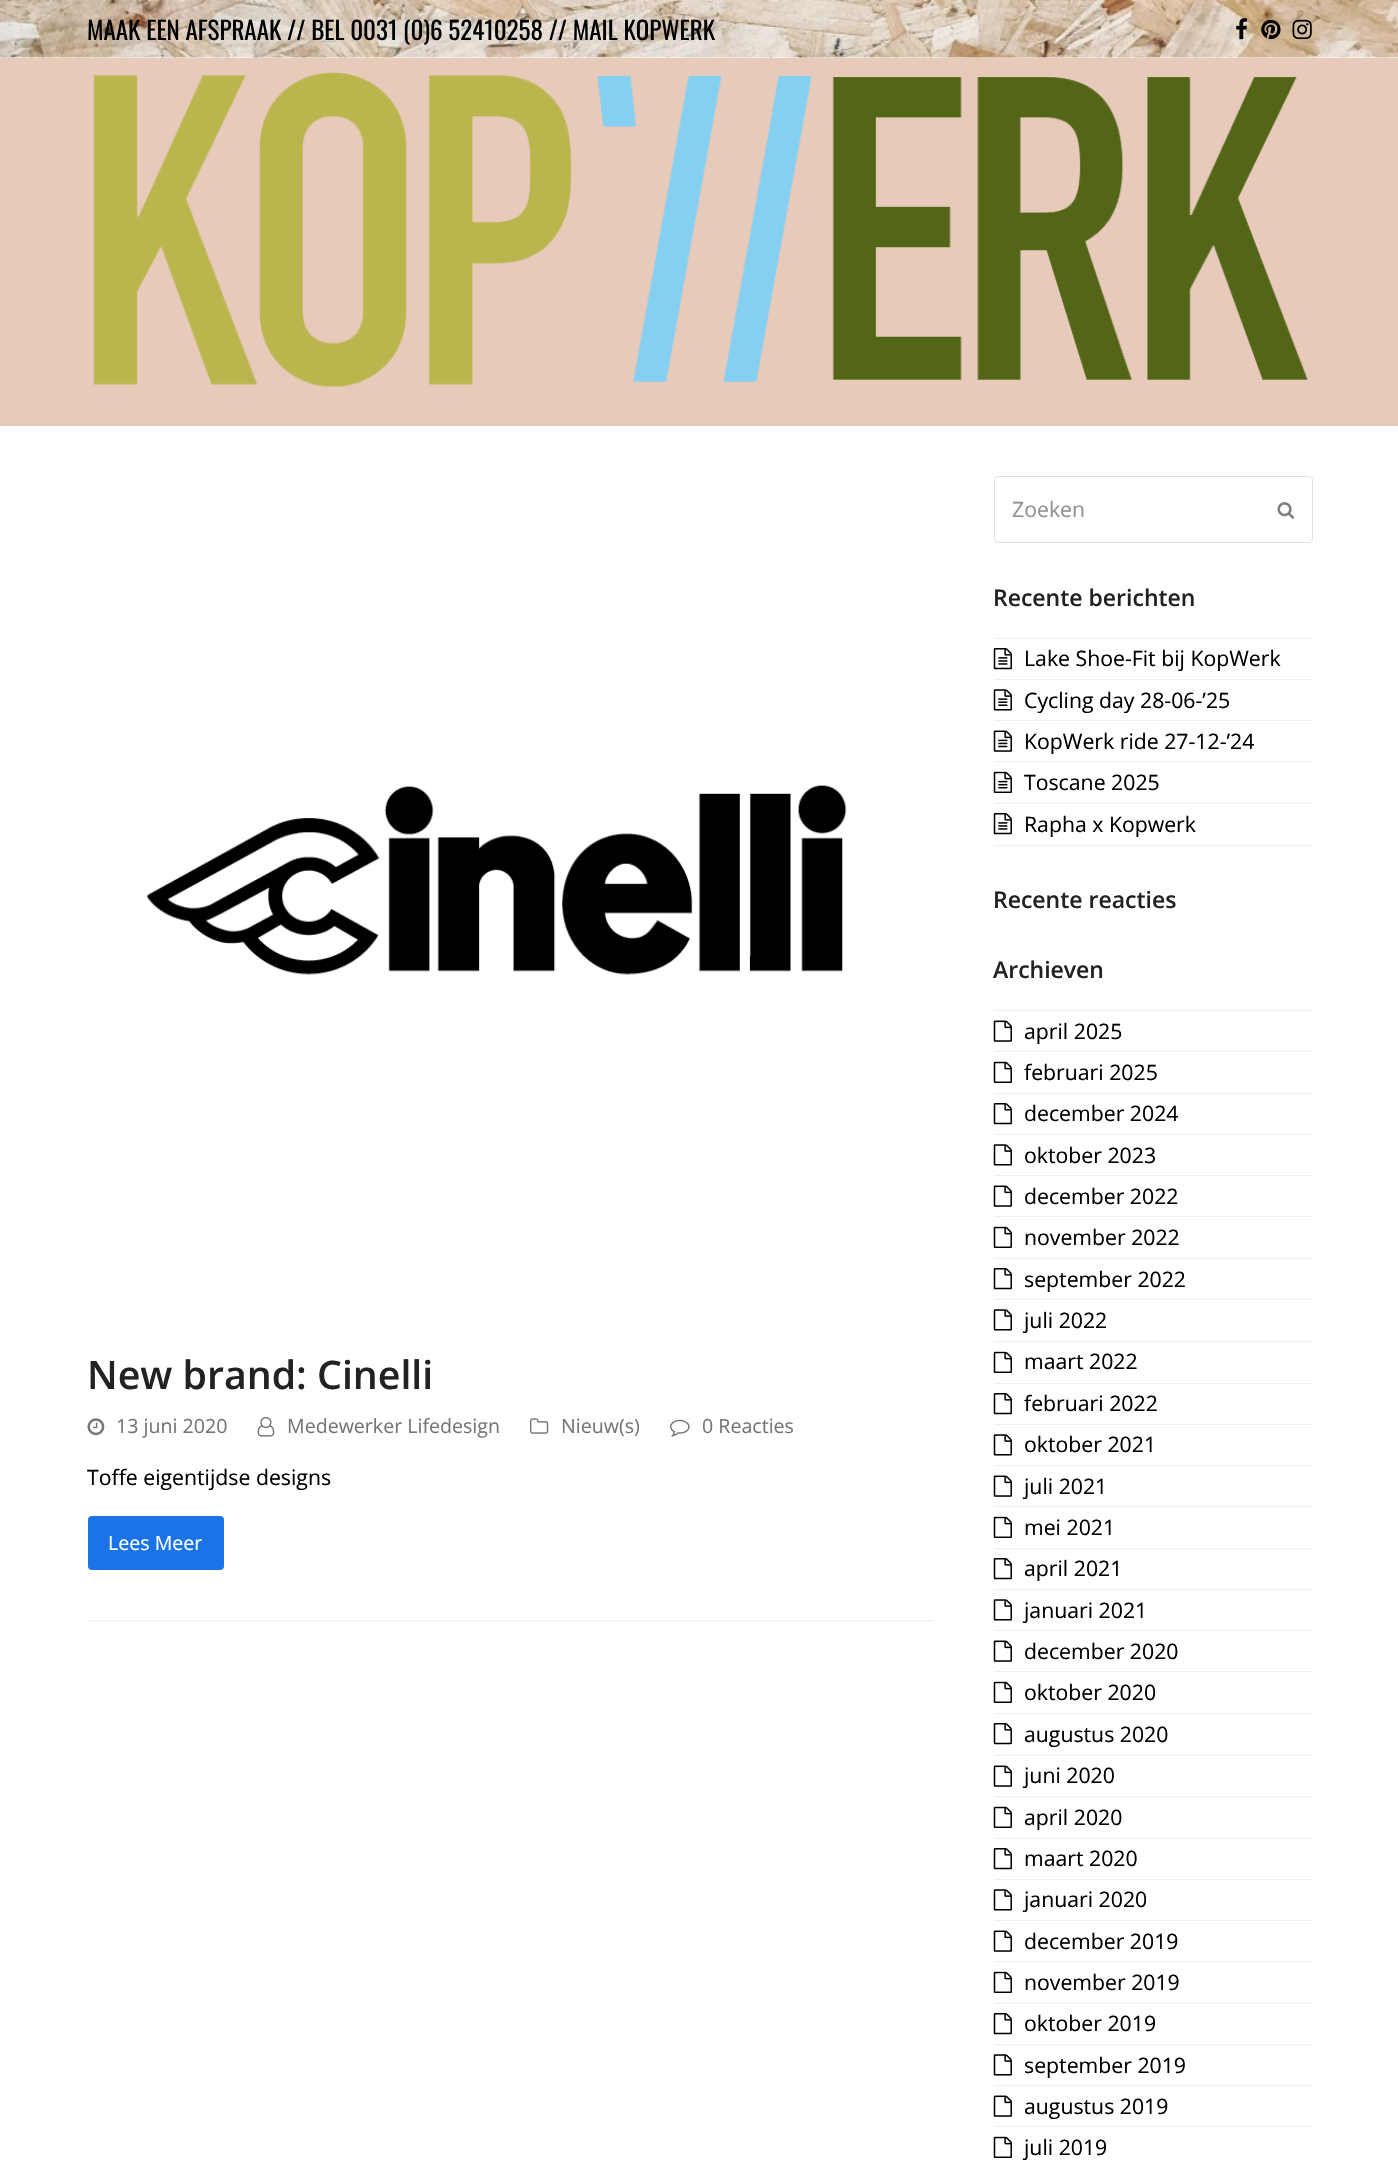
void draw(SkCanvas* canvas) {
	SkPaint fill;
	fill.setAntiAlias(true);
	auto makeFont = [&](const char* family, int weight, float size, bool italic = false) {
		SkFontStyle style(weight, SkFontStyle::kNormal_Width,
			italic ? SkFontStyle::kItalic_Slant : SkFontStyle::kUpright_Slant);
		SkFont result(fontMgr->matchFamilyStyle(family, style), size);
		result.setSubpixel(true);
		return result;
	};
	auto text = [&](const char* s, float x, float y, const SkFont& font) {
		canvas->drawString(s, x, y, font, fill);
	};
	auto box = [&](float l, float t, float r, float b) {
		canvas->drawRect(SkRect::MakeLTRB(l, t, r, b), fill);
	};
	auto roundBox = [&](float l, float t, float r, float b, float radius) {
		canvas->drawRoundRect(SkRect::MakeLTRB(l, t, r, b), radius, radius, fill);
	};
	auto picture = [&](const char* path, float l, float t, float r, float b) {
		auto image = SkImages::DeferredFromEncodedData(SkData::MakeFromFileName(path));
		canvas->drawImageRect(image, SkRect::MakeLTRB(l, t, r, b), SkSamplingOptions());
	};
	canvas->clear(0xFFFFFFFF);
	picture("image0.png", 0, 0, 1398, 58);
	picture("image1.png", 1236, 18, 1248, 40);
	picture("image2.png", 1261, 19, 1281, 40);
	picture("image3.png", 1292, 19, 1312, 40);
	fill.setColor(0xFFE8CABB);
	box(0, 58, 1398, 426);
	picture("image4.png", 93, 72, 572, 387);
	picture("image5.png", 596, 75, 812, 383);
	picture("image6.png", 832, 77, 1308, 380);
	picture("image7.png", 147, 785, 847, 975);
	picture("image8.png", 87, 1418, 105, 1436);
	picture("image9.png", 257, 1416, 275, 1437);
	picture("image10.png", 530, 1418, 549, 1434);
	picture("image11.png", 670, 1419, 690, 1437);
	fill.setColor(0xFF1A73E8);
	roundBox(88, 1516, 224, 1570, 4);
	fill.setColor(0xFFEEEEEE);
	box(88, 1620, 933, 1621);
	fill.setStyle(SkPaint::kStroke_Style);
	fill.setStrokeWidth(1);
	fill.setColor(0xFFE1E1E1);
	canvas->drawRoundRect(SkRect::MakeLTRB(994.5f, 476.5f, 1312.5f, 542.5f), 3.5f, 3.5f, fill);
	picture("image12.png", 1277, 502, 1295, 519);
	fill.setStyle(SkPaint::kFill_Style);
	fill.setColor(0xFFEEEEEE);
	box(994, 638, 1313, 639);
	box(994, 679, 1313, 680);
	picture("image13.png", 993, 648, 1012, 670);
	box(994, 720, 1313, 721);
	picture("image14.png", 993, 689, 1012, 711);
	box(994, 761, 1313, 762);
	picture("image15.png", 993, 730, 1012, 752);
	box(994, 803, 1313, 804);
	picture("image16.png", 993, 771, 1012, 793);
	box(994, 845, 1313, 846);
	picture("image13.png", 993, 813, 1012, 835);
	box(994, 1010, 1313, 1011);
	box(994, 1051, 1313, 1052);
	picture("image17.png", 993, 1020, 1012, 1042);
	box(994, 1093, 1313, 1094);
	picture("image18.png", 993, 1061, 1012, 1083);
	box(994, 1134, 1313, 1135);
	picture("image19.png", 993, 1103, 1012, 1125);
	box(994, 1175, 1313, 1176);
	picture("image20.png", 993, 1144, 1012, 1166);
	box(994, 1216, 1313, 1217);
	picture("image17.png", 993, 1185, 1012, 1207);
	box(994, 1258, 1313, 1259);
	picture("image18.png", 993, 1226, 1012, 1248);
	box(994, 1299, 1313, 1300);
	picture("image19.png", 993, 1268, 1012, 1290);
	box(994, 1341, 1313, 1342);
	picture("image20.png", 993, 1309, 1012, 1331);
	box(994, 1383, 1313, 1384);
	picture("image18.png", 993, 1351, 1012, 1373);
	box(994, 1424, 1313, 1425);
	picture("image19.png", 993, 1393, 1012, 1415);
	box(994, 1465, 1313, 1466);
	picture("image20.png", 993, 1434, 1012, 1456);
	box(994, 1506, 1313, 1507);
	picture("image17.png", 993, 1475, 1012, 1497);
	box(994, 1548, 1313, 1549);
	picture("image18.png", 993, 1516, 1012, 1538);
	box(994, 1589, 1313, 1590);
	picture("image19.png", 993, 1558, 1012, 1580);
	box(994, 1630, 1313, 1631);
	picture("image20.png", 993, 1599, 1012, 1621);
	box(994, 1671, 1313, 1672);
	picture("image17.png", 993, 1640, 1012, 1662);
	box(994, 1713, 1313, 1714);
	picture("image18.png", 993, 1681, 1012, 1703);
	box(994, 1755, 1313, 1756);
	picture("image19.png", 993, 1723, 1012, 1745);
	box(994, 1796, 1313, 1797);
	picture("image17.png", 993, 1765, 1012, 1787);
	box(994, 1838, 1313, 1839);
	picture("image18.png", 993, 1806, 1012, 1828);
	box(994, 1879, 1313, 1880);
	picture("image19.png", 993, 1848, 1012, 1870);
	box(994, 1920, 1313, 1921);
	picture("image20.png", 993, 1889, 1012, 1911);
	box(994, 1961, 1313, 1962);
	picture("image17.png", 993, 1930, 1012, 1952);
	box(994, 2003, 1313, 2004);
	picture("image18.png", 993, 1971, 1012, 1993);
	box(994, 2044, 1313, 2045);
	picture("image19.png", 993, 2013, 1012, 2035);
	box(994, 2085, 1313, 2086);
	picture("image20.png", 993, 2054, 1012, 2076);
	box(994, 2126, 1313, 2127);
	picture("image17.png", 993, 2095, 1012, 2117);
	picture("image18.png", 993, 2136, 1012, 2158);
	auto font1 = makeFont("Oswald", 400, 25);
	fill.setColor(0xFF000000);
	text("MAAK EEN AFSPRAAK // BEL 0031 (0)6 52410258 // MAIL KOPWERK", 87, 40, font1);
	auto font2 = makeFont("Open Sans", 600, 39.25f);
	fill.setColor(0xFF222222);
	text("New brand: Cinelli", 87, 1389, font2);
	auto font3 = makeFont("Open Sans", 400, 19.6f);
	fill.setColor(0xFF757575);
	text("13 juni 2020", 116, 1433, font3);
	text("Medewerker Lifedesign", 287, 1433, font3);
	text("Nieuw(s)", 561, 1433, font3);
	text("0 Reacties", 702, 1433, font3);
	auto font4 = makeFont("Open Sans", 400, 21.25f);
	fill.setColor(0xFF000000);
	text("Toffe eigentijdse designs", 87, 1485, font4);
	fill.setColor(0xFFFFFFFF);
	text("Lees Meer", 108, 1550, font3);
	fill.setColor(0xFF909090);
	text("Zoeken", 1012, 517, font4);
	auto font5 = makeFont("Open Sans", 600, 23);
	fill.setColor(0xFF222222);
	text("Recente berichten", 993, 606, font5);
	fill.setColor(0xFF000000);
	text("Lake Shoe-Fit bij KopWerk", 1024, 666, font4);
	text("Cycling day 28-06-’25", 1024, 708, font4);
	text("KopWerk ride 27-12-’24", 1024, 749, font4);
	text("Toscane 2025", 1024, 790, font4);
	text("Rapha x Kopwerk", 1024, 832, font4);
	fill.setColor(0xFF222222);
	text("Recente reacties", 993, 908, font5);
	text("Archieven", 993, 978, font5);
	fill.setColor(0xFF000000);
	text("april 2025", 1024, 1039, font4);
	text("februari 2025", 1024, 1080, font4);
	text("december 2024", 1024, 1121, font4);
	text("oktober 2023", 1024, 1163, font4);
	text("december 2022", 1024, 1204, font4);
	text("november 2022", 1024, 1245, font4);
	text("september 2022", 1024, 1287, font4);
	text("juli 2022", 1024, 1328, font4);
	text("maart 2022", 1024, 1369, font4);
	text("februari 2022", 1024, 1411, font4);
	text("oktober 2021", 1024, 1452, font4);
	text("juli 2021", 1024, 1494, font4);
	text("mei 2021", 1024, 1535, font4);
	text("april 2021", 1024, 1576, font4);
	text("januari 2021", 1024, 1618, font4);
	text("december 2020", 1024, 1659, font4);
	text("oktober 2020", 1024, 1700, font4);
	text("augustus 2020", 1024, 1742, font4);
	text("juni 2020", 1024, 1783, font4);
	text("april 2020", 1024, 1825, font4);
	text("maart 2020", 1024, 1866, font4);
	text("januari 2020", 1024, 1907, font4);
	text("december 2019", 1024, 1949, font4);
	text("november 2019", 1024, 1990, font4);
	text("oktober 2019", 1024, 2031, font4);
	text("september 2019", 1024, 2073, font4);
	text("augustus 2019", 1024, 2114, font4);
	text("juli 2019", 1024, 2155, font4);
}
